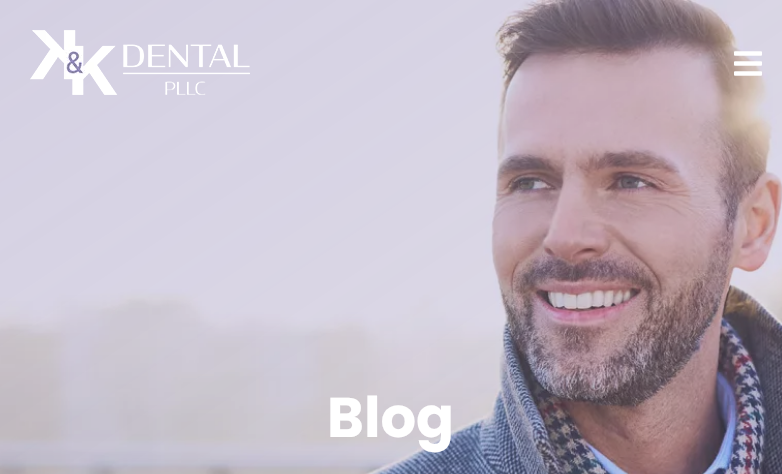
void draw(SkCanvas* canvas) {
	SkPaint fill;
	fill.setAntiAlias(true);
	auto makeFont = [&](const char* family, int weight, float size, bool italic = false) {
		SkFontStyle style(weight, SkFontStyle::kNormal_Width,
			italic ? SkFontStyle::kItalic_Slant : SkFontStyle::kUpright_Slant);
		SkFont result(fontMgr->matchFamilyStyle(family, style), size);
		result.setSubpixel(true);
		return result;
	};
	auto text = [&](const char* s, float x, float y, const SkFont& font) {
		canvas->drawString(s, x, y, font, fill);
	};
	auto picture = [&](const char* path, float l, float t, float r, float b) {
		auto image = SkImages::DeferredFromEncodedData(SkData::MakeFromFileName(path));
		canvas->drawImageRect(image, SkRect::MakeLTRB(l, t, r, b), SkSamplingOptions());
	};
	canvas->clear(0xFFFFFFFF);
	picture("image2.png", 0, 0, 782, 474);
	picture("image0.png", 30, 30, 250, 95);
	picture("image1.png", 734, 51, 762, 76);
	auto font1 = makeFont("Poppins", 700, 56);
	fill.setColor(0xFFFFFFFF);
	text("Blog", 327, 437, font1);
}
